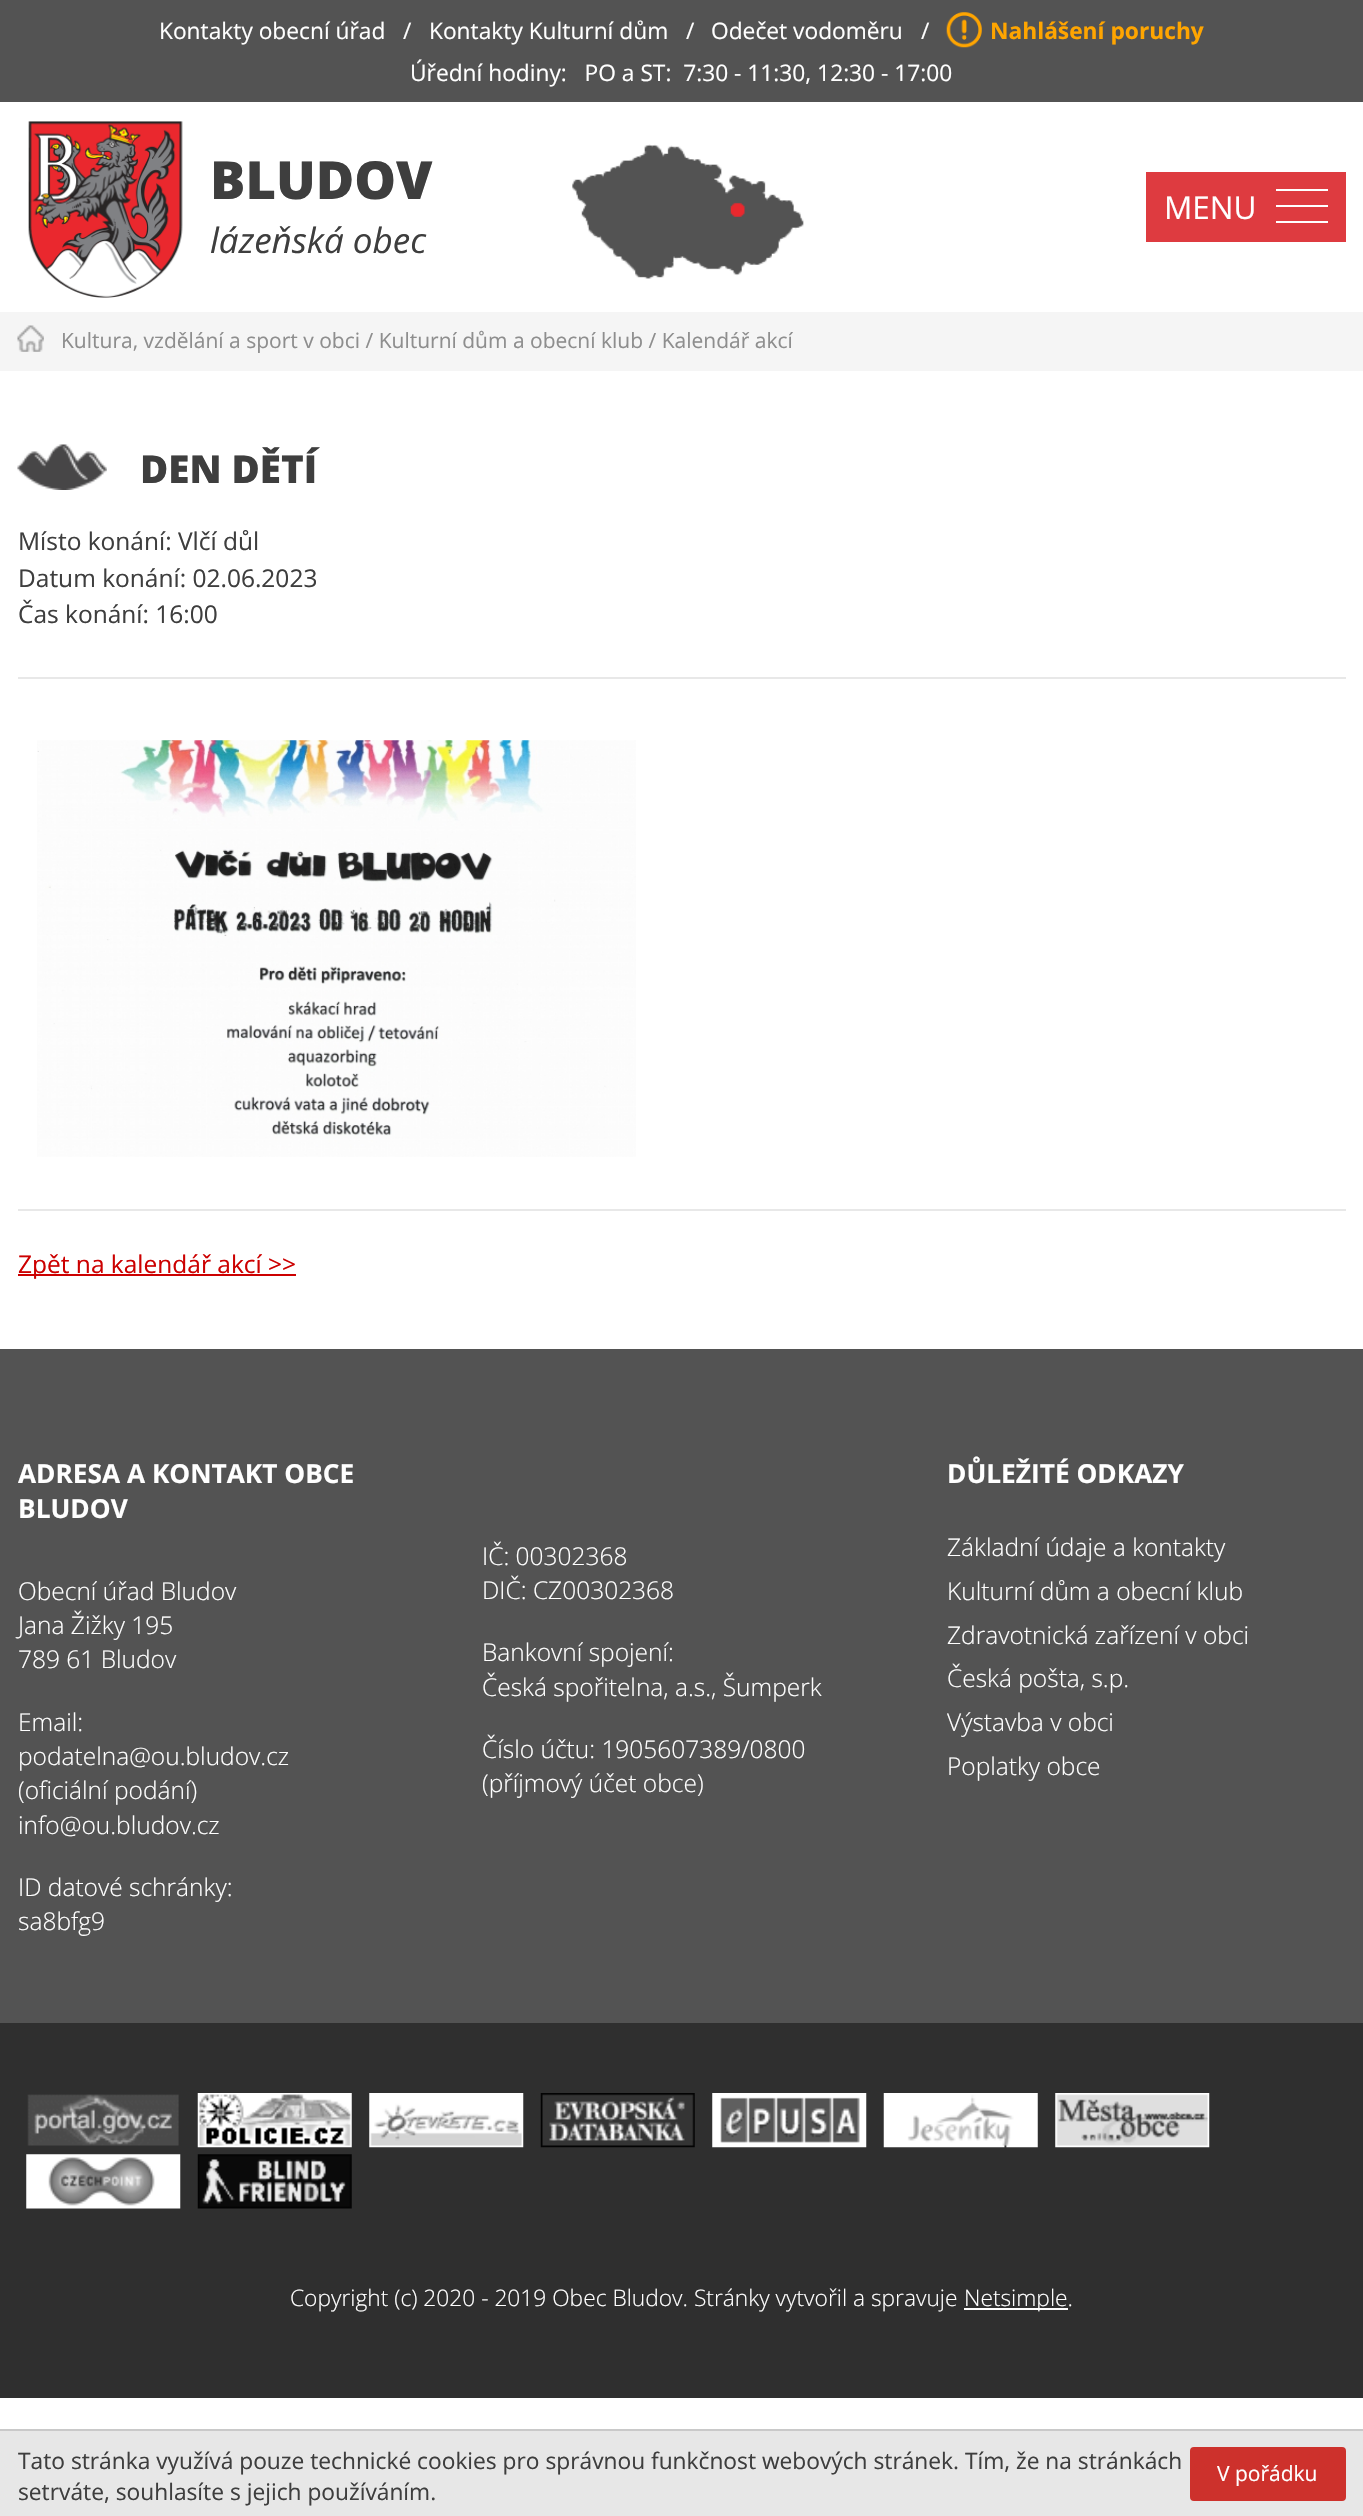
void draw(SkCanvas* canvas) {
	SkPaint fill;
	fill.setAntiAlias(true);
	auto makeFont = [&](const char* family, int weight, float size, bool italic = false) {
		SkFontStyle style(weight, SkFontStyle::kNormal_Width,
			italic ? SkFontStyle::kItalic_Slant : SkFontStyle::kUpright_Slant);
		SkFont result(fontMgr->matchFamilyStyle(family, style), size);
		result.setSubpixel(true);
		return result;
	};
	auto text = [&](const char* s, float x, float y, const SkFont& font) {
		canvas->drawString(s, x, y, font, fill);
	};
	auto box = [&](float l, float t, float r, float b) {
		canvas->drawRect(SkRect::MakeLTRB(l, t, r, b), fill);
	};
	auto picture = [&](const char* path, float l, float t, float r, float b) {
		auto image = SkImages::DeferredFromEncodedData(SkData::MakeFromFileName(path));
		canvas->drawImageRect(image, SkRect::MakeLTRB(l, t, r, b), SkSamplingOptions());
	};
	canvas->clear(0xFFFFFFFF);
	fill.setColor(0xFF535353);
	box(0, 0, 1363, 102);
	picture("image0.png", 946, 12, 982, 48);
	picture("image1.png", 28, 121, 183, 298);
	picture("image2.png", 572, 144, 804, 279);
	fill.setColor(0xFFDE3B40);
	box(1146, 172, 1346, 242);
	fill.setColor(0xFFFFFFFF);
	box(1276, 205, 1328, 207);
	box(1276, 189, 1328, 191);
	box(1276, 221, 1328, 223);
	fill.setColor(0xFFF5F5F5);
	box(0, 312, 1363, 371);
	picture("image3.png", 17, 325, 44, 352);
	picture("image4.png", 17, 444, 107, 490);
	fill.setColor(0xFFE8E8E8);
	box(18, 677, 1346, 679);
	picture("image5.png", 37, 740, 636, 1157);
	box(18, 1209, 1346, 1211);
	fill.setColor(0xFFCC0000);
	box(18, 1274, 296, 1276);
	fill.setColor(0xFF535353);
	box(0, 1349, 1363, 2023);
	fill.setColor(0xFF2F2F2F);
	box(0, 2023, 1363, 2398);
	picture("image6.png", 27, 2094, 179, 2146);
	picture("image7.png", 197, 2093, 352, 2148);
	picture("image8.png", 369, 2093, 524, 2148);
	picture("image9.png", 540, 2093, 695, 2148);
	picture("image10.png", 712, 2093, 867, 2148);
	picture("image11.png", 883, 2093, 1038, 2148);
	picture("image12.png", 1055, 2093, 1210, 2148);
	picture("image13.png", 26, 2154, 181, 2209);
	picture("image14.png", 197, 2154, 352, 2209);
	fill.setColor(0xFFFFFFFF);
	box(964, 2308, 1068, 2310);
	fill.setColor(0xFFE7E7E7);
	box(0, 2431, 1363, 2516);
	fill.setColor(0xFFC9C9C9);
	box(0, 2429, 1363, 2431);
	fill.setColor(0xFFCD312C);
	canvas->drawRoundRect(SkRect::MakeLTRB(1191, 2448, 1345, 2500), 3, 3, fill);
	fill.setStyle(SkPaint::kStroke_Style);
	fill.setStrokeWidth(2);
	canvas->drawRoundRect(SkRect::MakeLTRB(1191, 2448, 1345, 2500), 3, 3, fill);
	auto font1 = makeFont("Open Sans", 400, 22.75f);
	fill.setStyle(SkPaint::kFill_Style);
	fill.setColor(0xFFFFFFFF);
	text("Kontakty obecní úřad", 159, 39, font1);
	text("/", 403, 39, font1);
	text("Kontakty Kulturní dům", 429, 39, font1);
	text("/", 686, 39, font1);
	text("Odečet vodoměru", 711, 39, font1);
	text("/", 921, 39, font1);
	auto font2 = makeFont("Open Sans", 700, 22.75f);
	fill.setColor(0xFFFFA500);
	text("Nahlášení poruchy", 990, 39, font2);
	fill.setColor(0xFFFFFFFF);
	text("Úřední hodiny:   PO a ST:  7:30 - 11:30, 12:30 - 17:00", 410, 81, font1);
	auto font3 = makeFont("Open Sans", 800, 52.5f);
	fill.setColor(0xFF3E3E3E);
	text("BLUDOV", 210, 199, font3);
	auto font4 = makeFont("Open Sans", 400, 35, true);
	text("lázeňská obec", 210, 253, font4);
	auto font5 = makeFont("Open Sans", 400, 31.5f);
	fill.setColor(0xFFFFFFFF);
	text("MENU", 1164, 219, font5);
	auto font6 = makeFont("Open Sans", 400, 21);
	fill.setColor(0xFF8E8E8E);
	text("Kultura, vzdělání a sport v obci / Kulturní dům a obecní klub / Kalendář akcí", 61, 348, font6);
	auto font7 = makeFont("Open Sans", 800, 38.5f);
	fill.setColor(0xFF3E3E3E);
	text("DEN DĚTÍ", 140, 483, font7);
	auto font8 = makeFont("Open Sans", 400, 24.5f);
	text("Místo konání: Vlčí důl", 18, 550, font8);
	text("Datum konání: 02.06.2023", 18, 587, font8);
	text("Čas konání: 16:00", 18, 623, font8);
	fill.setColor(0xFFCC0000);
	text("Zpět na kalendář akcí >>", 18, 1273, font8);
	auto font9 = makeFont("Open Sans", 700, 26.25f);
	fill.setColor(0xFFFFFFFF);
	text("ADRESA A KONTAKT OBCE", 18, 1483, font9);
	text("BLUDOV", 18, 1518, font9);
	auto font10 = makeFont("Open Sans", 300, 24.5f);
	text("Obecní úřad Bludov", 18, 1600, font10);
	text("Jana Žižky 195", 18, 1634, font10);
	text("789 61 Bludov", 18, 1668, font10);
	text("Email:", 18, 1731, font10);
	text("podatelna@ou.bludov.cz", 18, 1765, font10);
	text("(oficiální podání)", 18, 1799, font10);
	text("info@ou.bludov.cz", 18, 1834, font10);
	text("ID datové schránky:", 18, 1896, font10);
	text("sa8bfg9", 18, 1930, font10);
	text("IČ: 00302368", 482, 1565, font10);
	text("DIČ: CZ00302368", 482, 1599, font10);
	text("Bankovní spojení:", 482, 1661, font10);
	text("Česká spořitelna, a.s., Šumperk", 482, 1696, font10);
	text("Číslo účtu: 1905607389/0800", 482, 1758, font10);
	text("(příjmový účet obce)", 482, 1792, font10);
	text("DŮLEŽITÉ ODKAZY", 947, 1483, font9);
	text("Základní údaje a kontakty", 947, 1556, font10);
	text("Kulturní dům a obecní klub", 947, 1600, font10);
	text("Zdravotnická zařízení v obci", 947, 1644, font10);
	text("Česká pošta, s.p.", 947, 1687, font10);
	text("Výstavba v obci", 947, 1731, font10);
	text("Poplatky obce", 947, 1775, font10);
	auto font11 = makeFont("Open Sans", 300, 22.75f);
	text("Copyright (c) 2020 - 2019 Obec Bludov. Stránky vytvořil a spravuje", 290, 2306, font11);
	text("Netsimple.", 964, 2306, font11);
	fill.setColor(0xFF3E3E3E);
	text("Tato stránka využívá pouze technické cookies pro správnou funkčnost webových stránek. Tím, že na stránkách", 18, 2469, font1);
	text("setrváte, souhlasíte s jejich používáním.", 18, 2500, font1);
	fill.setColor(0xFFFFFFFF);
	text("V pořádku", 1217, 2481, font6);
}
